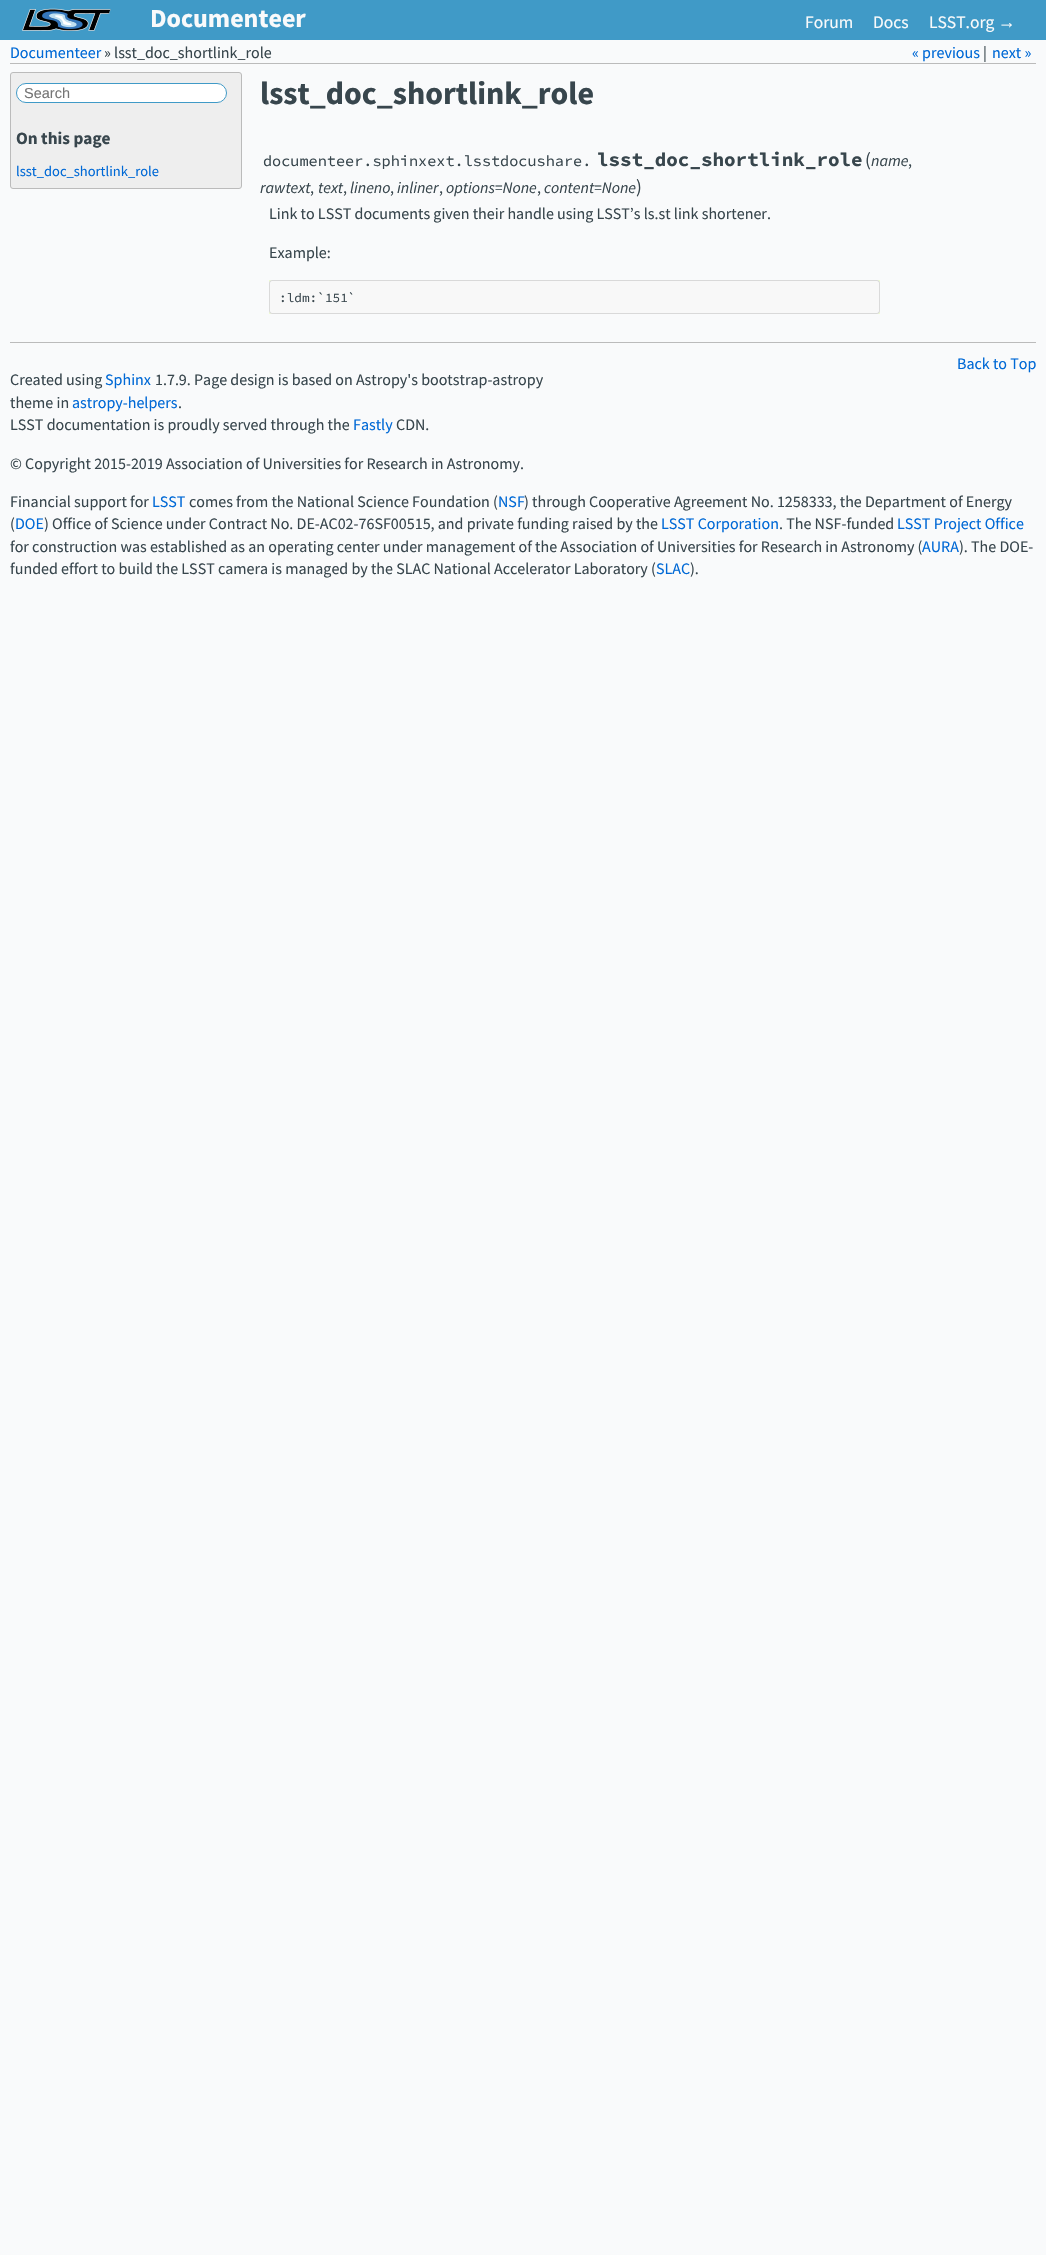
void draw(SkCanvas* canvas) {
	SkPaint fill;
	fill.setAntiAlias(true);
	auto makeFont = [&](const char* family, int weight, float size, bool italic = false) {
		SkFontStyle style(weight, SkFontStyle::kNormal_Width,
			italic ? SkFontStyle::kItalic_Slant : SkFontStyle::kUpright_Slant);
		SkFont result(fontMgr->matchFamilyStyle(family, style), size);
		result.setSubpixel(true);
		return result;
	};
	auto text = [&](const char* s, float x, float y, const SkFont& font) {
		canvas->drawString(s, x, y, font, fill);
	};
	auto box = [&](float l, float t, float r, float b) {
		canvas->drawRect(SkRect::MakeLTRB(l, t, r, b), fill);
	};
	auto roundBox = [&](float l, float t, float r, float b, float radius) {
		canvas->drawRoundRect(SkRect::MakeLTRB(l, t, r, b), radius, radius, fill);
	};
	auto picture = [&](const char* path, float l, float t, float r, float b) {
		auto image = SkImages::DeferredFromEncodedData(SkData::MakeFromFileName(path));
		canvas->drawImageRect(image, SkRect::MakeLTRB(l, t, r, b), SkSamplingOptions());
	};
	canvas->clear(0xFFF9FAFB);
	fill.setColor(0xFF409AC7);
	box(0, 0, 1046, 40);
	picture("image0.png", 22, 8, 111, 31);
	fill.setColor(0xFFBBBBBB);
	box(10, 63, 1036, 64);
	fill.setColor(0xFFEEEEEE);
	canvas->drawRoundRect(SkRect::MakeLTRB(10.5f, 72.5f, 241.5f, 188.5f), 2.5f, 2.5f, fill);
	fill.setStyle(SkPaint::kStroke_Style);
	fill.setStrokeWidth(1);
	fill.setColor(0xFFBBBBBB);
	canvas->drawRoundRect(SkRect::MakeLTRB(10.5f, 72.5f, 241.5f, 188.5f), 2.5f, 2.5f, fill);
	fill.setStyle(SkPaint::kFill_Style);
	fill.setColor(0xFFFFFFFF);
	canvas->drawRoundRect(SkRect::MakeLTRB(16.5f, 83.5f, 226.5f, 102.5f), 9.5f, 9.5f, fill);
	fill.setStyle(SkPaint::kStroke_Style);
	fill.setColor(0xFF409AC7);
	canvas->drawRoundRect(SkRect::MakeLTRB(16.5f, 83.5f, 226.5f, 102.5f), 9.5f, 9.5f, fill);
	fill.setStyle(SkPaint::kFill_Style);
	fill.setColor(0xFFEEFFCC);
	box(269, 280, 880, 314);
	fill.setColor(0xFFF8F8F8);
	roundBox(269, 280, 880, 314, 3);
	fill.setStyle(SkPaint::kStroke_Style);
	fill.setColor(0x1F000000);
	canvas->drawRoundRect(SkRect::MakeLTRB(269.5f, 280.5f, 879.5f, 313.5f), 2.5f, 2.5f, fill);
	fill.setStyle(SkPaint::kFill_Style);
	fill.setColor(0xFFBBBBBB);
	box(10, 342, 1036, 343);
	auto font1 = makeFont("Source Sans Pro", 700, 26);
	fill.setColor(0xFFF9FAFB);
	text("Documenteer", 150, 27, font1);
	auto font2 = makeFont("Source Sans Pro", 400, 17.5f);
	text("Forum", 805, 28, font2);
	text("Docs", 873, 28, font2);
	text("LSST.org", 929, 28, font2);
	auto font3 = makeFont("Liberation Sans", 400, 17.5f);
	text("→", 998, 28, font3);
	auto font4 = makeFont("Source Sans Pro", 400, 16);
	fill.setColor(0xFF0069D6);
	text("Documenteer", 10, 58, font4);
	fill.setColor(0xFF38464D);
	text("» lsst_doc_shortlink_role", 104, 58, font4);
	fill.setColor(0xFF0069D6);
	text("« previous", 912, 58, font4);
	fill.setColor(0xFF38464D);
	text("|", 983, 58, font4);
	fill.setColor(0xFF0069D6);
	text("next »", 992, 58, font4);
	auto font5 = makeFont("Liberation Sans", 400, 14.5f);
	fill.setColor(0xFF757575);
	text("Search", 24, 98, font5);
	auto font6 = makeFont("Source Sans Pro", 700, 17.25f);
	fill.setColor(0xFF38464D);
	text("On this page", 16, 144, font6);
	auto font7 = makeFont("Source Sans Pro", 400, 14.5f);
	fill.setColor(0xFF0069D6);
	text("lsst_doc_shortlink_role", 16, 176, font7);
	auto font8 = makeFont("Source Sans Pro", 700, 32);
	fill.setColor(0xFF38464D);
	text("lsst_doc_shortlink_role", 260, 104, font8);
	auto font9 = makeFont("Source Code Pro", 400, 15.2f);
	text("documenteer.sphinxext.lsstdocushare.", 263, 166, font9);
	auto font10 = makeFont("Source Code Pro", 700, 19.25f);
	text("lsst_doc_shortlink_role", 597, 166, font10);
	auto font11 = makeFont("Source Sans Pro", 400, 19.25f);
	text("(", 865, 166, font11);
	auto font12 = makeFont("Source Sans Pro", 400, 16, true);
	text("name", 871, 166, font12);
	text(",", 908, 166, font4);
	text("rawtext", 260, 193, font12);
	text(",", 310, 193, font4);
	text("text", 318, 193, font12);
	text(",", 343, 193, font4);
	text("lineno", 350, 193, font12);
	text(",", 390, 193, font4);
	text("inliner", 397, 193, font12);
	text(",", 439, 193, font4);
	text("options=None", 446, 193, font12);
	text(",", 537, 193, font4);
	text("content=None", 544, 193, font12);
	text(")", 636, 193, font11);
	text("Link to LSST documents given their handle using LSST’s ls.st link shortener.", 269, 219, font4);
	text("Example:", 269, 258, font4);
	auto font13 = makeFont("Source Code Pro", 400, 12.75f);
	text(":ldm:`151`", 279, 302, font13);
	fill.setColor(0xFF0069D6);
	text("Back to Top", 957, 369, font4);
	fill.setColor(0xFF38464D);
	text("Created using", 10, 385, font4);
	fill.setColor(0xFF0069D6);
	text("Sphinx", 105, 385, font4);
	fill.setColor(0xFF38464D);
	text("1.7.9. Page design is based on Astropy's bootstrap-astropy", 155, 385, font4);
	text("theme in", 10, 408, font4);
	fill.setColor(0xFF0069D6);
	text("astropy-helpers", 72, 408, font4);
	fill.setColor(0xFF38464D);
	text(".", 178, 408, font4);
	text("LSST documentation is proudly served through the", 10, 430, font4);
	fill.setColor(0xFF0069D6);
	text("Fastly", 353, 430, font4);
	fill.setColor(0xFF38464D);
	text("CDN.", 396, 430, font4);
	text("© Copyright 2015-2019 Association of Universities for Research in Astronomy.", 10, 469, font4);
	text("Financial support for", 10, 507, font4);
	fill.setColor(0xFF0069D6);
	text("LSST", 152, 507, font4);
	fill.setColor(0xFF38464D);
	text("comes from the National Science Foundation (", 189, 507, font4);
	fill.setColor(0xFF0069D6);
	text("NSF", 498, 507, font4);
	fill.setColor(0xFF38464D);
	text(") through Cooperative Agreement No. 1258333, the Department of Energy", 524, 507, font4);
	text("(", 10, 529, font4);
	fill.setColor(0xFF0069D6);
	text("DOE", 15, 529, font4);
	fill.setColor(0xFF38464D);
	text(") Office of Science under Contract No. DE-AC02-76SF00515, and private funding raised by the", 44, 529, font4);
	fill.setColor(0xFF0069D6);
	text("LSST Corporation", 661, 529, font4);
	fill.setColor(0xFF38464D);
	text(". The NSF-funded", 779, 529, font4);
	fill.setColor(0xFF0069D6);
	text("LSST Project Office", 897, 529, font4);
	fill.setColor(0xFF38464D);
	text("for construction was established as an operating center under management of the Association of Universities for Research in Astronomy (", 10, 552, font4);
	fill.setColor(0xFF0069D6);
	text("AURA", 922, 552, font4);
	fill.setColor(0xFF38464D);
	text("). The DOE-", 959, 552, font4);
	text("funded effort to build the LSST camera is managed by the SLAC National Accelerator Laboratory (", 10, 574, font4);
	fill.setColor(0xFF0069D6);
	text("SLAC", 656, 574, font4);
	fill.setColor(0xFF38464D);
	text(").", 690, 574, font4);
}
